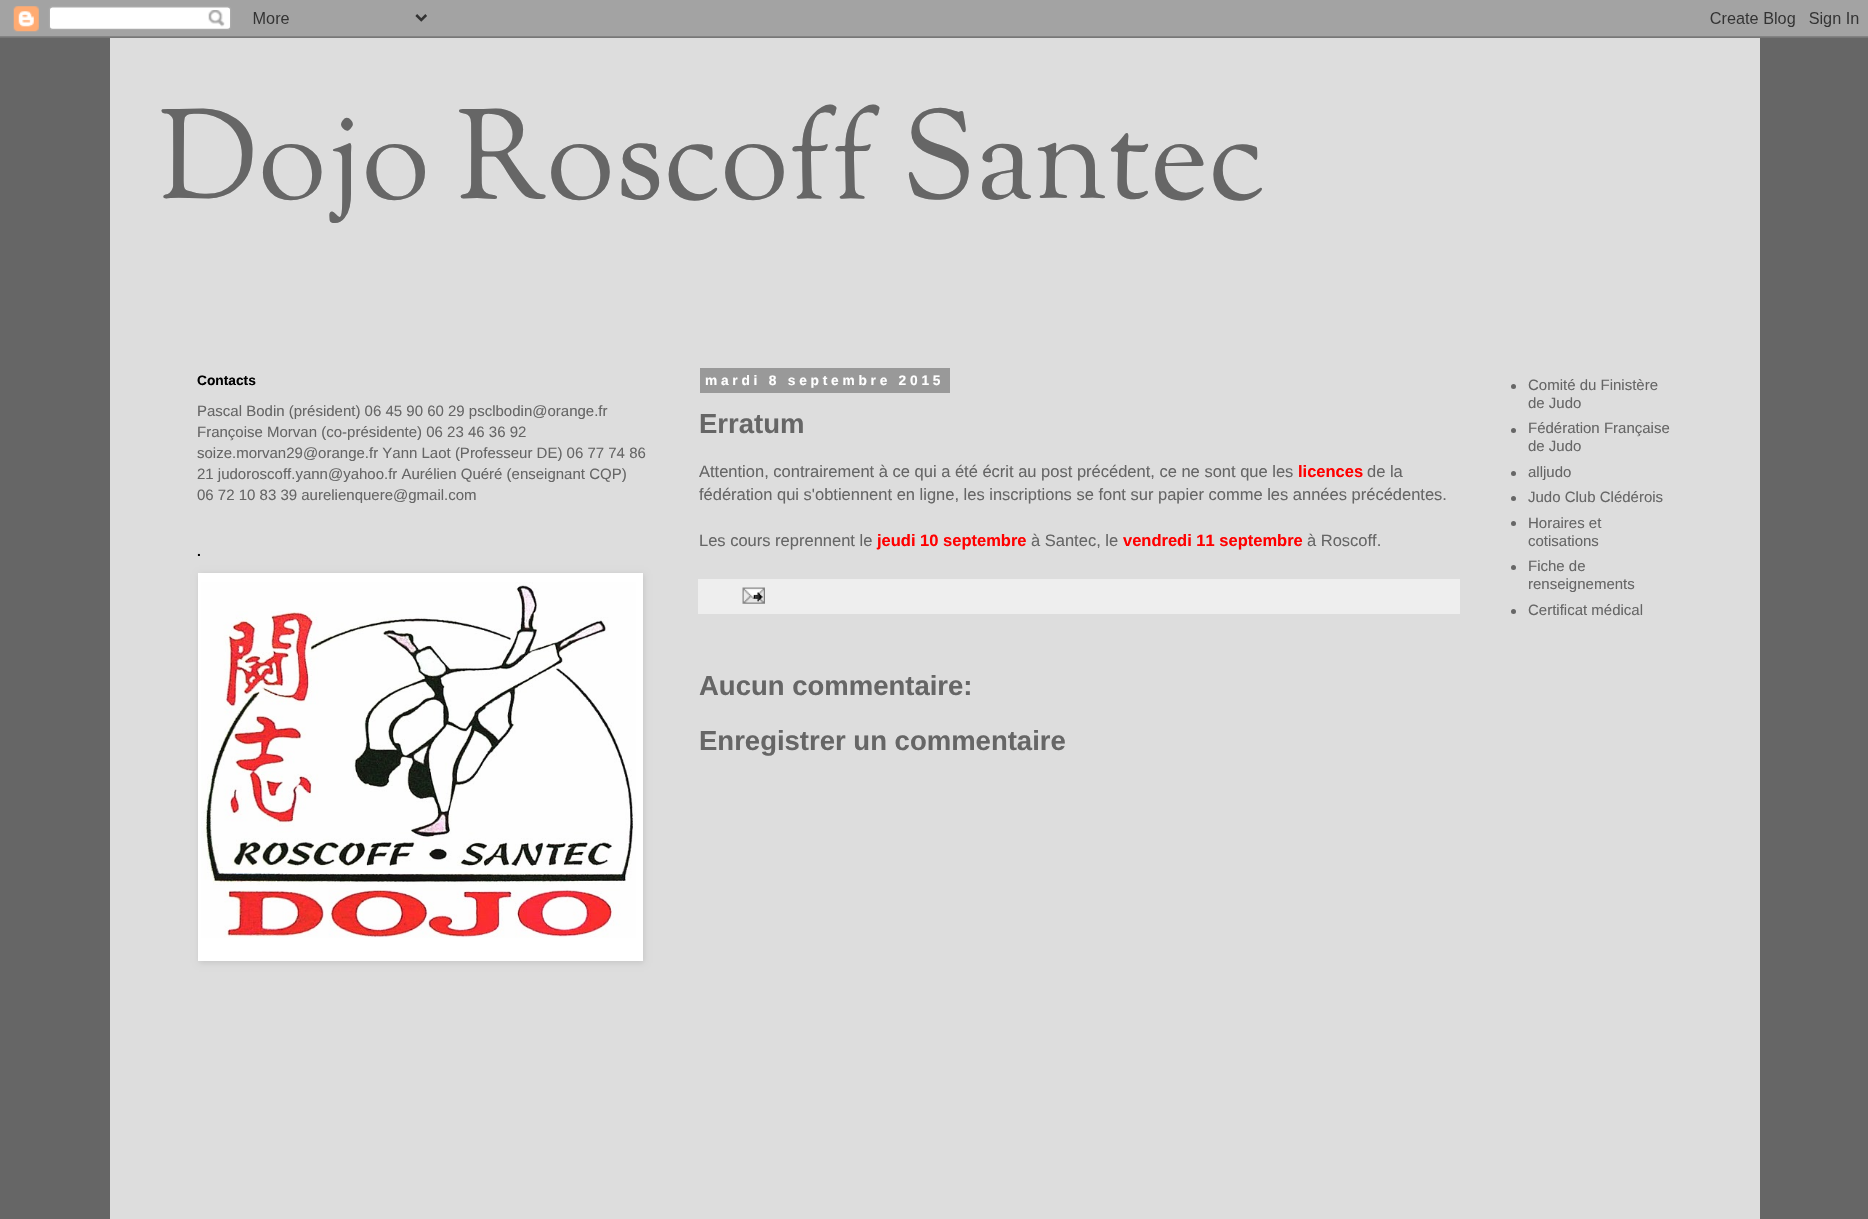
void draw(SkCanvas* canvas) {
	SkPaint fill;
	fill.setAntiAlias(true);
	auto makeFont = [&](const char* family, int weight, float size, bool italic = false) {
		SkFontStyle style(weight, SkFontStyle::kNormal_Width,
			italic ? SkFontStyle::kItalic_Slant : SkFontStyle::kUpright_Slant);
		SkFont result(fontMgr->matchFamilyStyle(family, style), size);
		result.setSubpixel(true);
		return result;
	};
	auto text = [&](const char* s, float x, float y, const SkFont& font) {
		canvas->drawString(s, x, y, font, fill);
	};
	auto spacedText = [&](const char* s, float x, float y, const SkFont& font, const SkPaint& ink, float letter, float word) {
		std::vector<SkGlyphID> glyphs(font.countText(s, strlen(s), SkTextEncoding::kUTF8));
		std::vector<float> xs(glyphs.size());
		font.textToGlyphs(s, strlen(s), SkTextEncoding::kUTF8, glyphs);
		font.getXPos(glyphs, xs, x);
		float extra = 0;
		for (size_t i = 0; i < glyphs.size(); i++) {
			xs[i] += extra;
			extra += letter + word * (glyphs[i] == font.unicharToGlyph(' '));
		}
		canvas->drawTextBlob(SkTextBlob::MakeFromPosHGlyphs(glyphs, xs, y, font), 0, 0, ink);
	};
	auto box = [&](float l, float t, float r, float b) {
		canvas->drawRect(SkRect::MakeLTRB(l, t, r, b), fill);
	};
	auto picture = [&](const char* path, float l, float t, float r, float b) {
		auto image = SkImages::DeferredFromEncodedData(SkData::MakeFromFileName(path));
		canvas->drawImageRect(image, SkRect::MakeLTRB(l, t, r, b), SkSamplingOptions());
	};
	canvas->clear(0xFF666666);
	picture("image0.png", 0, 0, 1868, 38);
	fill.setColor(0xFFDDDDDD);
	box(110, 38, 1760, 1219);
	fill.setColor(0x1A000000);
	fill.setMaskFilter(SkMaskFilter::MakeBlur(kNormal_SkBlurStyle, 3));
	canvas->drawRect(SkRect::MakeLTRB(199, 574, 644, 963), fill);
	fill.setMaskFilter(nullptr);
	fill.setColor(0xFFFFFFFF);
	box(198, 573, 643, 961);
	picture("image1.png", 201, 582, 636, 938);
	fill.setColor(0xFF999999);
	box(700, 368, 950, 393);
	fill.setColor(0xFFEEEEEE);
	box(698, 579, 1460, 614);
	picture("image2.png", 742, 587, 765, 604);
	fill.setColor(0xFF666666);
	canvas->drawCircle(1513.5f, 386.5f, 2.5f, fill);
	canvas->drawCircle(1513.5f, 430.5f, 2.5f, fill);
	canvas->drawCircle(1513.5f, 473.5f, 2.5f, fill);
	canvas->drawCircle(1513.5f, 498.5f, 2.5f, fill);
	canvas->drawCircle(1513.5f, 523.5f, 2.5f, fill);
	canvas->drawCircle(1513.5f, 567.5f, 2.5f, fill);
	canvas->drawCircle(1513.5f, 611.5f, 2.5f, fill);
	auto font1 = makeFont("Sorts Mill Goudy", 400, 125);
	text("Dojo Roscoff Santec", 159, 198, font1);
	auto font2 = makeFont("Liberation Sans", 700, 13.75f);
	fill.setColor(0xFF000000);
	text("Contacts", 197, 385, font2);
	auto font3 = makeFont("Liberation Sans", 400, 15);
	fill.setColor(0xFF666666);
	text("Pascal Bodin (président) 06 45 90 60 29 psclbodin@orange.fr", 197, 416, font3);
	text("Françoise Morvan (co-présidente) 06 23 46 36 92", 197, 437, font3);
	text("soize.morvan29@orange.fr Yann Laot (Professeur DE) 06 77 74 86", 197, 458, font3);
	text("21 judoroscoff.yann@yahoo.fr Aurélien Quéré (enseignant CQP)", 197, 479, font3);
	text("06 72 10 83 39 aurelienquere@gmail.com", 197, 500, font3);
	fill.setColor(0xFF000000);
	text(".", 197, 556, font2);
	fill.setColor(0xFFFFFFFF);
	spacedText("mardi 8 septembre 2015", 705, 385, font2, fill, 3.75f, 0);
	auto font4 = makeFont("Liberation Sans", 700, 27.5f);
	fill.setColor(0xFF666666);
	text("Erratum", 699, 433, font4);
	auto font5 = makeFont("Liberation Sans", 400, 16.5f);
	text("Attention, contrairement à ce qui a été écrit au post précédent, ce ne sont que les", 699, 477, font5);
	auto font6 = makeFont("Liberation Sans", 700, 16.5f);
	fill.setColor(0xFFFF0000);
	text("licences", 1298, 477, font6);
	fill.setColor(0xFF666666);
	text("de la", 1367, 477, font5);
	text("fédération qui s'obtiennent en ligne, les inscriptions se font sur papier comme les années précédentes.", 699, 500, font5);
	text("Les cours reprennent le", 699, 546, font5);
	fill.setColor(0xFFFF0000);
	text("jeudi 10 septembre", 877, 546, font6);
	fill.setColor(0xFF666666);
	text("à Santec, le", 1031, 546, font5);
	fill.setColor(0xFFFF0000);
	text("vendredi 11 septembre", 1123, 546, font6);
	fill.setColor(0xFF666666);
	text("à Roscoff.", 1307, 546, font5);
	text("Aucun commentaire:", 699, 695, font4);
	text("Enregistrer un commentaire", 699, 750, font4);
	text("Comité du Finistère", 1528, 390, font3);
	text("de Judo", 1528, 408, font3);
	text("Fédération Française", 1528, 433, font3);
	text("de Judo", 1528, 451, font3);
	text("alljudo", 1528, 477, font3);
	text("Judo Club Clédérois", 1528, 502, font3);
	text("Horaires et", 1528, 528, font3);
	text("cotisations", 1528, 546, font3);
	text("Fiche de", 1528, 571, font3);
	text("renseignements", 1528, 589, font3);
	text("Certificat médical", 1528, 615, font3);
}
